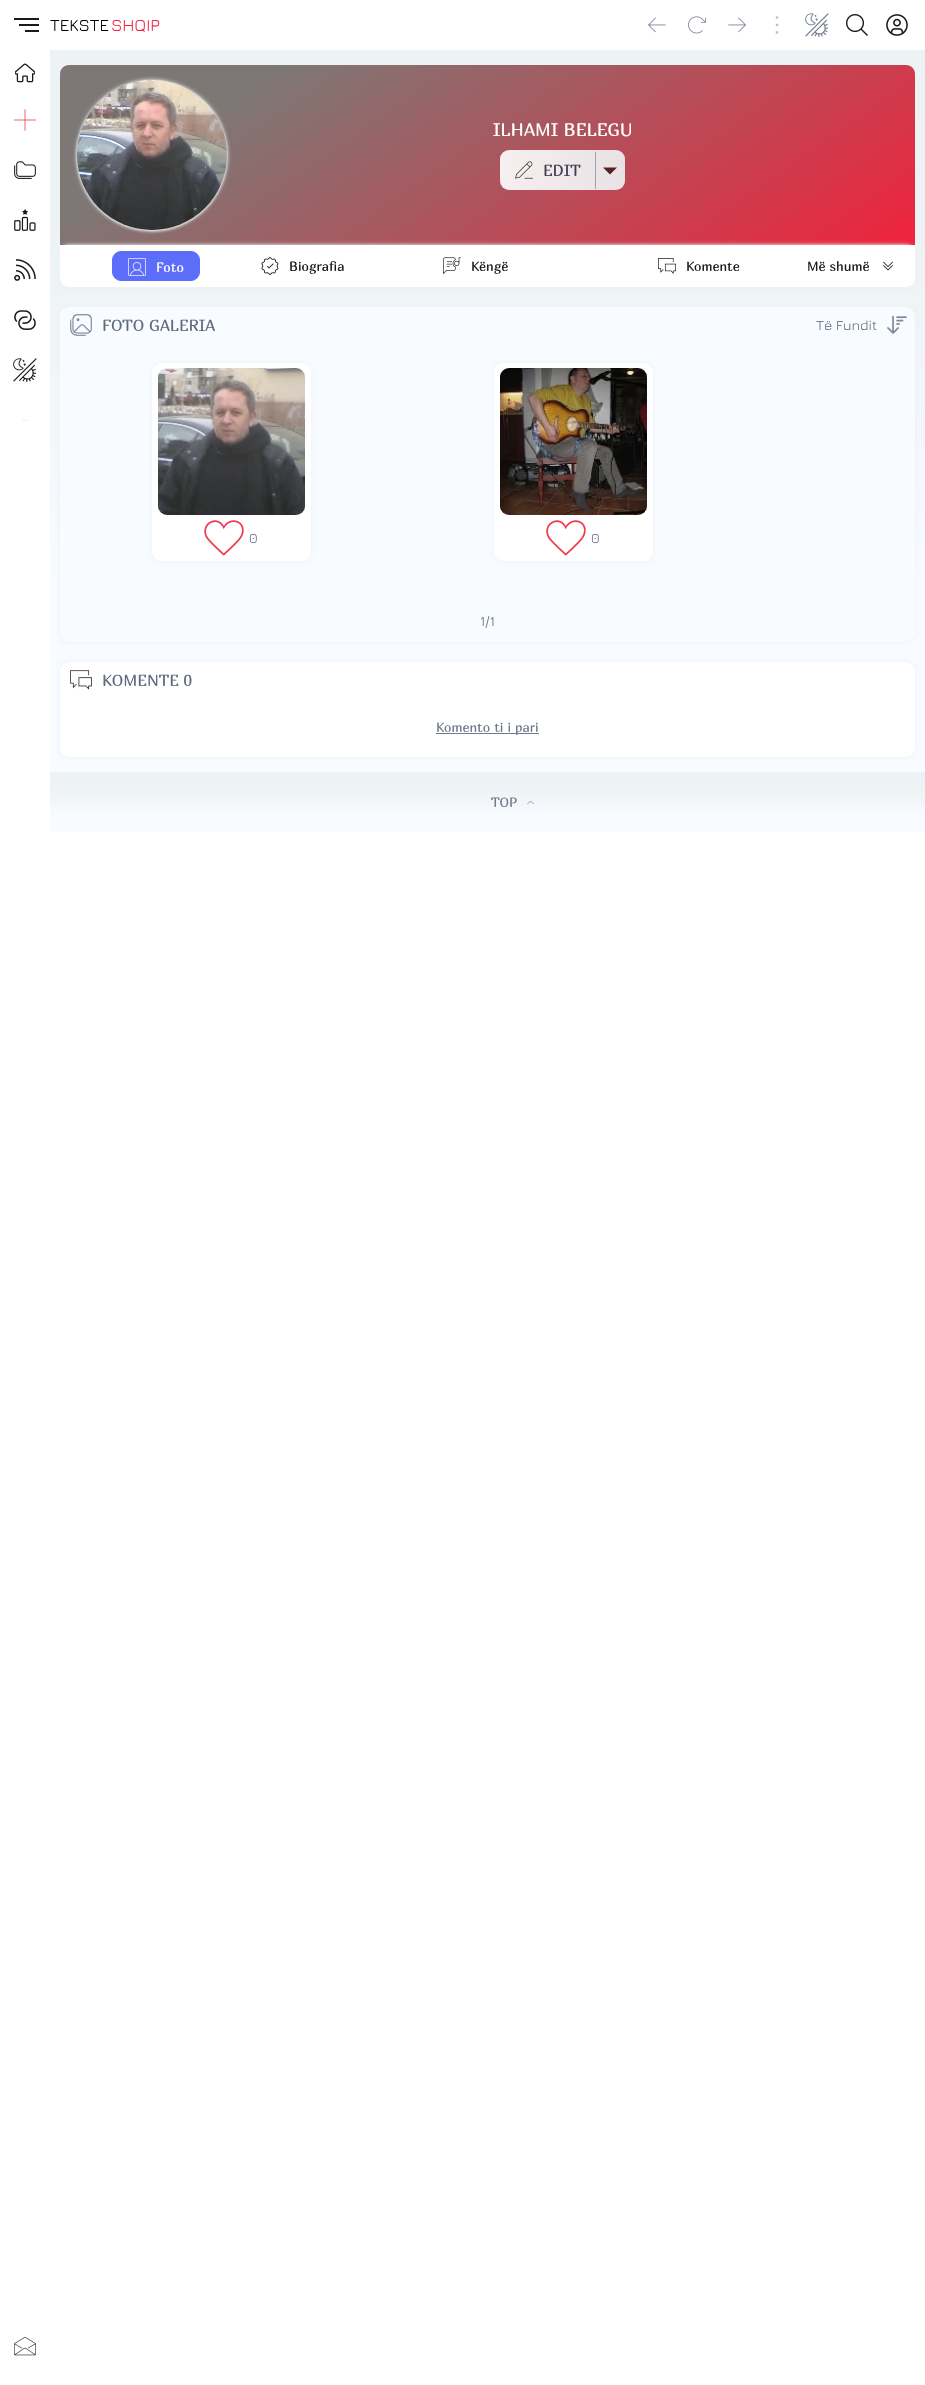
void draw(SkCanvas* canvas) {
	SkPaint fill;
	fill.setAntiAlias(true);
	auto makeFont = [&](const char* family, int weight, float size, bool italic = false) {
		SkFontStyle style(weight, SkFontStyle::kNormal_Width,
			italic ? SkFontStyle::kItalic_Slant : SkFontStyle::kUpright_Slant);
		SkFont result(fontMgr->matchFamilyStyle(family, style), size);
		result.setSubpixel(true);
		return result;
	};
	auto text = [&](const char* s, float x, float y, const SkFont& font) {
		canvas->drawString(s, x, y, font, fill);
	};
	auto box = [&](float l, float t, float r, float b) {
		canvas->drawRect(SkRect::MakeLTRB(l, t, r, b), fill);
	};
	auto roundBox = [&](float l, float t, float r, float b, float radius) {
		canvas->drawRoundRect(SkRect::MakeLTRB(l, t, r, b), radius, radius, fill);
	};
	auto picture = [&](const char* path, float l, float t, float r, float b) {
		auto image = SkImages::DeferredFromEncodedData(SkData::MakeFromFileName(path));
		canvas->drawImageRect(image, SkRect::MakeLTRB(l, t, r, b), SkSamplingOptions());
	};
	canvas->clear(0xFFFFFFFF);
	fill.setColor(0xFF1A1A1A);
	box(14, 18, 39, 20);
	box(19, 24, 39, 26);
	box(25, 30, 39, 32);
	picture("image0.png", 648, 17, 666, 33);
	picture("image1.png", 688, 16, 706, 34);
	picture("image2.png", 728, 17, 746, 33);
	picture("image3.png", 775, 16, 779, 34);
	picture("image4.png", 805, 13, 829, 37);
	picture("image5.png", 846, 14, 868, 36);
	picture("image6.png", 886, 14, 908, 36);
	picture("image7.png", 15, 63, 35, 83);
	picture("image8.png", 14, 109, 36, 131);
	picture("image9.png", 14, 161, 36, 179);
	picture("image10.png", 14, 209, 36, 231);
	picture("image11.png", 14, 259, 36, 281);
	picture("image12.png", 14, 310, 36, 330);
	picture("image13.png", 13, 358, 37, 382);
	picture("image14.png", 23, 420, 28, 421);
	picture("image15.png", 14, 2337, 36, 2356);
	{
		const SkColor colors[] = {0xFFEDF2F4, 0xFFF8FBFF, 0xFFF8FBFF};
		const float stops[] = {0.25f, 0.75f, 1};
		const SkPoint ends[] = {{487, 50}, {488, 772}};
		fill.setShader(SkGradientShader::MakeLinear(ends, colors, stops, 3, SkTileMode::kClamp));
		fill.setAlpha(255);
	}
	box(50, 50, 925, 772);
	{
		const SkColor colors[] = {0xFF7D7875, 0xFFEF233C};
		const float stops[] = {0.2f, 1};
		const SkPoint ends[] = {{305, -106}, {670, 416}};
		fill.setShader(SkGradientShader::MakeLinear(ends, colors, stops, 2, SkTileMode::kClamp));
		fill.setAlpha(255);
	}
	canvas->drawPath(SkPathBuilder().moveTo(69, 65).lineTo(906, 65).cubicTo(911, 65, 915, 69, 915, 74).lineTo(915, 245).lineTo(60, 245).lineTo(60, 74).cubicTo(60, 69, 64, 65, 69, 65).close().detach(), fill);
	fill.setShader(nullptr);
	fill.setColor(0xFFEDF2F4);
	fill.setMaskFilter(SkMaskFilter::MakeBlur(kNormal_SkBlurStyle, 2));
	canvas->drawRoundRect(SkRect::MakeLTRB(77, 80, 227, 230), 75, 75, fill);
	fill.setMaskFilter(nullptr);
	fill.setMaskFilter(SkMaskFilter::MakeBlur(kNormal_SkBlurStyle, 1.5f));
	canvas->drawRoundRect(SkRect::MakeLTRB(77, 81, 227, 231), 75, 75, fill);
	fill.setMaskFilter(nullptr);
	picture("image16.png", 77, 80, 227, 230);
	{
		const SkColor colors[] = {0xE6FFFFFF, 0xE6EDF2F4};
		const float stops[] = {0, 1};
		const SkPoint ends[] = {{500, 170}, {625, 170}};
		fill.setShader(SkGradientShader::MakeLinear(ends, colors, stops, 2, SkTileMode::kClamp));
		fill.setAlpha(255);
	}
	roundBox(500, 150, 625, 190, 9);
	picture("image17.png", 515, 161, 533, 179);
	fill.setShader(nullptr);
	fill.setColor(0xFF9FA3AF);
	box(595, 152, 596, 189);
	fill.setColor(0xFF562228);
	canvas->drawPath(SkPathBuilder().moveTo(603, 167.5f).lineTo(610, 174.5f).lineTo(617, 167.5f).close().detach(), fill);
	fill.setColor(0xFFEDF2F4);
	fill.setMaskFilter(SkMaskFilter::MakeBlur(kNormal_SkBlurStyle, 2));
	canvas->drawRoundRect(SkRect::MakeLTRB(60, 245, 915, 287), 9, 9, fill);
	fill.setMaskFilter(nullptr);
	fill.setMaskFilter(SkMaskFilter::MakeBlur(kNormal_SkBlurStyle, 1.5f));
	canvas->drawRoundRect(SkRect::MakeLTRB(60, 246, 915, 288), 9, 9, fill);
	fill.setMaskFilter(nullptr);
	fill.setColor(0xFFFFFFFF);
	canvas->drawPath(SkPathBuilder().moveTo(60, 245).lineTo(915, 245).lineTo(915, 278).cubicTo(915, 283, 911, 287, 906, 287).lineTo(69, 287).cubicTo(64, 287, 60, 283, 60, 278).close().detach(), fill);
	fill.setColor(0xFF5C6DFA);
	canvas->drawRoundRect(SkRect::MakeLTRB(112.5f, 251.5f, 199.5f, 280.5f), 8.5f, 8.5f, fill);
	fill.setStyle(SkPaint::kStroke_Style);
	fill.setStrokeWidth(1);
	canvas->drawRoundRect(SkRect::MakeLTRB(112.5f, 251.5f, 199.5f, 280.5f), 8.5f, 8.5f, fill);
	picture("image18.png", 128, 258, 146, 276);
	picture("image19.png", 261, 257, 279, 275);
	picture("image20.png", 443, 257, 461, 274);
	picture("image21.png", 658, 258, 676, 274);
	picture("image22.png", 883, 261, 893, 271);
	fill.setStyle(SkPaint::kFill_Style);
	fill.setColor(0xFFEDF2F4);
	fill.setMaskFilter(SkMaskFilter::MakeBlur(kNormal_SkBlurStyle, 2));
	canvas->drawRoundRect(SkRect::MakeLTRB(60, 307, 915, 642), 9, 9, fill);
	fill.setMaskFilter(nullptr);
	fill.setColor(0xFFF8FBFF);
	roundBox(60, 307, 915, 642, 9);
	picture("image23.png", 70, 314, 92, 336);
	picture("image24.png", 887, 315, 907, 334);
	fill.setColor(0xFFEDF2F4);
	fill.setMaskFilter(SkMaskFilter::MakeBlur(kNormal_SkBlurStyle, 2));
	canvas->drawRoundRect(SkRect::MakeLTRB(152, 363, 311, 561), 9, 9, fill);
	fill.setMaskFilter(nullptr);
	fill.setColor(0xFFFFFFFF);
	roundBox(152, 363, 311, 561, 9);
	picture("image25.png", 158, 368, 305, 515);
	picture("image26.png", 204, 520, 244, 556);
	fill.setColor(0xFFEDF2F4);
	fill.setMaskFilter(SkMaskFilter::MakeBlur(kNormal_SkBlurStyle, 2));
	canvas->drawRoundRect(SkRect::MakeLTRB(494, 363, 653, 561), 9, 9, fill);
	fill.setMaskFilter(nullptr);
	fill.setColor(0xFFFFFFFF);
	roundBox(494, 363, 653, 561, 9);
	picture("image27.png", 500, 368, 647, 515);
	picture("image26.png", 546, 520, 586, 556);
	fill.setColor(0xFFEDF2F4);
	fill.setMaskFilter(SkMaskFilter::MakeBlur(kNormal_SkBlurStyle, 2));
	canvas->drawRoundRect(SkRect::MakeLTRB(60, 662, 915, 757), 9, 9, fill);
	fill.setMaskFilter(nullptr);
	fill.setColor(0xFFFFFFFF);
	roundBox(60, 662, 915, 757, 9);
	picture("image28.png", 70, 670, 92, 690);
	fill.setColor(0xFF6F7A8C);
	box(436, 733, 539, 734);
	{
		const SkColor colors[] = {0xFFEDF2F4, 0xFFF8FBFF, 0xFFF8FBFF};
		const float stops[] = {0.25f, 0.75f, 1};
		const SkPoint ends[] = {{488, 772}, {488, 832}};
		fill.setShader(SkGradientShader::MakeLinear(ends, colors, stops, 3, SkTileMode::kClamp));
		fill.setAlpha(255);
	}
	box(50, 772, 925, 832);
	picture("image29.png", 527, 800, 534, 804);
	auto font1 = makeFont("Jura", 300, 17);
	fill.setShader(nullptr);
	fill.setColor(0xFF000000);
	text("TEKSTE", 50, 31, font1);
	fill.setColor(0xFFEF233C);
	text("SHQIP", 111, 31, font1);
	auto font2 = makeFont("Marmelad", 400, 18);
	fill.setColor(0xFFFFFFFF);
	text("ILHAMI BELEGU", 493, 136, font2);
	auto font3 = makeFont("Marmelad", 400, 16);
	fill.setColor(0xFF3F4053);
	text("EDIT", 543, 176, font3);
	auto font4 = makeFont("Marmelad", 400, 13.25f);
	fill.setColor(0xFFFFFFFF);
	text("Foto", 156, 272, font4);
	fill.setColor(0xFF1A1A1A);
	text("Biografia", 289, 271, font4);
	text("Këngë", 471, 271, font4);
	text("Komente", 686, 271, font4);
	text("Më shumë", 807, 271, font4);
	fill.setColor(0xFF5F6B7F);
	text("FOTO GALERIA", 102, 331, font3);
	auto font5 = makeFont("Jura", 300, 14);
	text("Të Fundit", 816, 330, font5);
	text("0", 249, 543, font5);
	text("0", 591, 543, font5);
	text("1/1", 480, 626, font5);
	text("KOMENTE 0", 102, 686, font3);
	fill.setColor(0xFF6F7A8C);
	text("Komento ti i pari", 436, 732, font4);
	text("TOP", 491, 807, font4);
}
